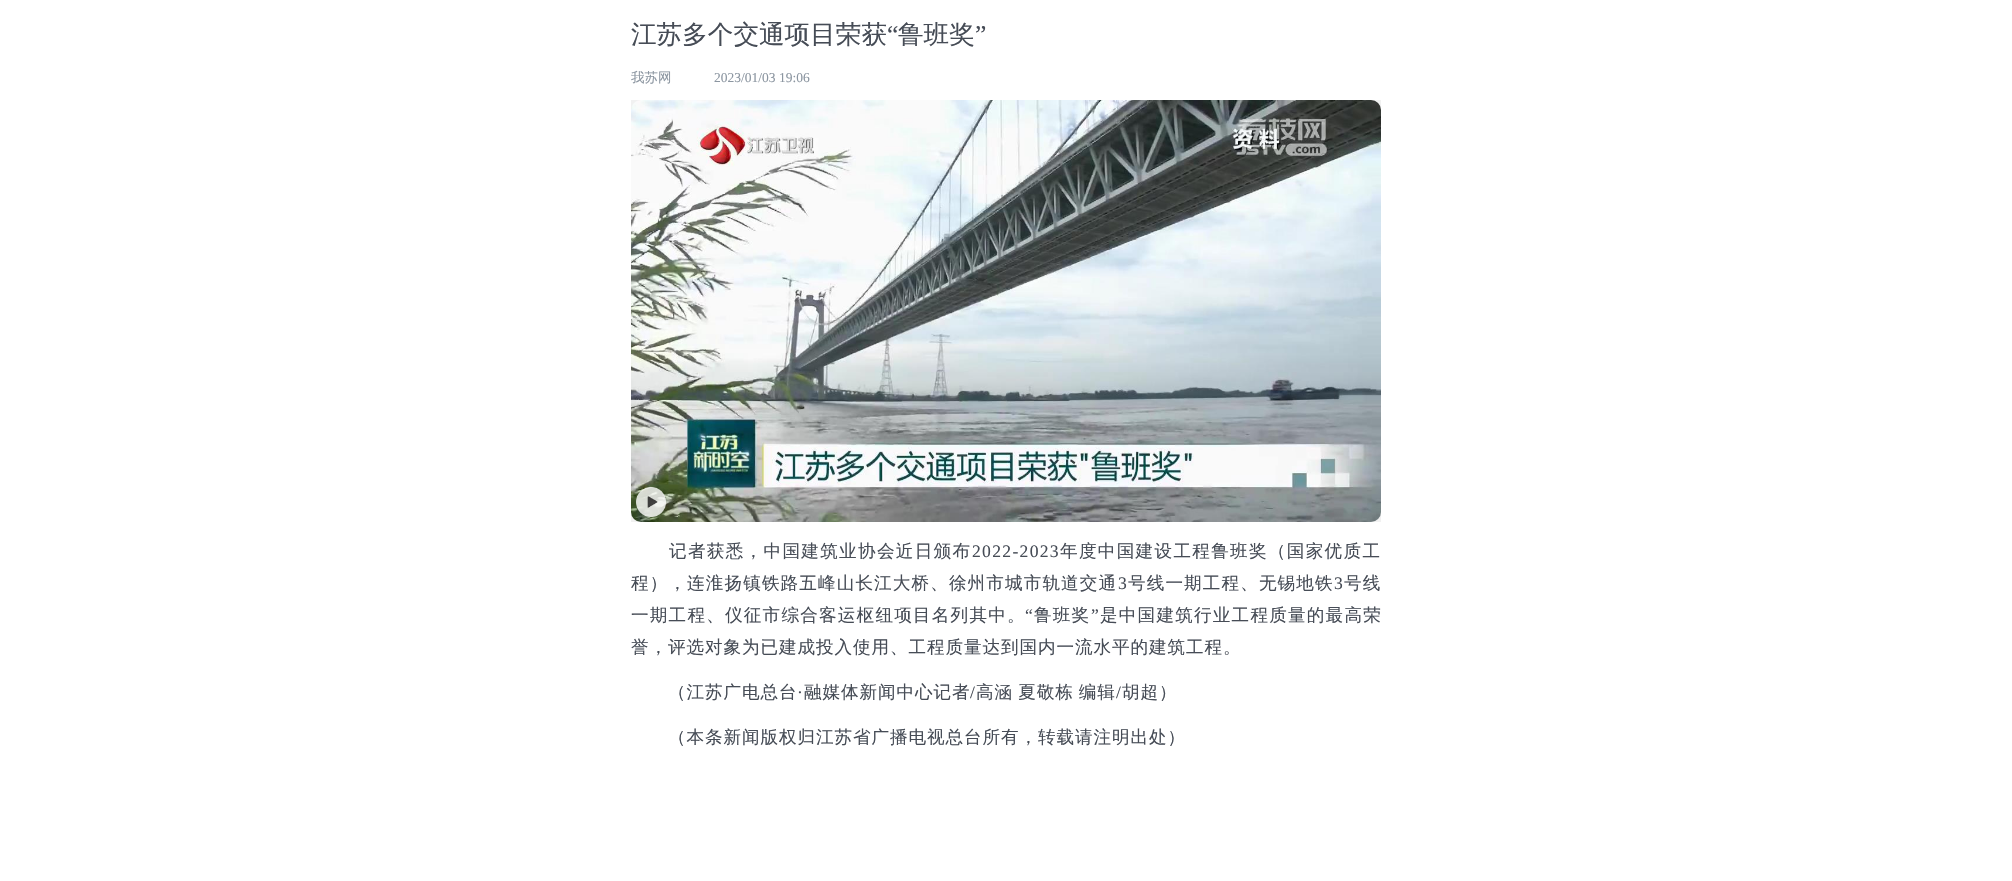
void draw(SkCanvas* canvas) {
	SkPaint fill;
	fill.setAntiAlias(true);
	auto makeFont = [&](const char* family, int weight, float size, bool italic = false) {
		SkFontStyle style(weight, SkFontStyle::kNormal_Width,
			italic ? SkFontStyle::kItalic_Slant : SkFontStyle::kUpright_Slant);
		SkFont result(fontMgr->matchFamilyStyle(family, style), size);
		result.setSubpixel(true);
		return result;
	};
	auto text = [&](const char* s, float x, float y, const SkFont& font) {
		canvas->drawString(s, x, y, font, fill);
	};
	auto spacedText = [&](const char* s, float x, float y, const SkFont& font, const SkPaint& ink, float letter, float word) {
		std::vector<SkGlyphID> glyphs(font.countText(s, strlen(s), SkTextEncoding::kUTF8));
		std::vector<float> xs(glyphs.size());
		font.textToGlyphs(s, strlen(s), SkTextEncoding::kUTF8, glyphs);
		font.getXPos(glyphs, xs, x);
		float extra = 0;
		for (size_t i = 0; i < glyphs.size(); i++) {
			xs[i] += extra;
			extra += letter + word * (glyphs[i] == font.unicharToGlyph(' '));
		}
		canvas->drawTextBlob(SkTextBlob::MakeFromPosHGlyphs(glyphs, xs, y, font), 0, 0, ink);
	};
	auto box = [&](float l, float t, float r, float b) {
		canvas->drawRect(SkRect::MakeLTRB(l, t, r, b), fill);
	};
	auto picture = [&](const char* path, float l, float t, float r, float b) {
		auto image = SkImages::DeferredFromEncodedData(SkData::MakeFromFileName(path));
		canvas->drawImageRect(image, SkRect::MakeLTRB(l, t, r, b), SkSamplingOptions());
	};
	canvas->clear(0xFFFFFFFF);
	fill.setColor(0xFFF1F1F1);
	box(631, 100, 1381, 522);
	picture("image0.png", 631, 100, 1381, 522);
	picture("image1.png", 636, 487, 666, 517);
	auto font1 = makeFont("WenQuanYi Zen Hei", 500, 25.6f);
	fill.setColor(0xFF464C56);
	text("江苏多个交通项目荣获", 631, 43, font1);
	auto font2 = makeFont("Liberation Serif", 400, 25.6f);
	text("“", 887, 43, font2);
	text("鲁班奖", 898, 43, font1);
	text("”", 975, 43, font2);
	auto font3 = makeFont("WenQuanYi Zen Hei", 500, 13.5f);
	fill.setColor(0xFF8C96A1);
	text("我苏网", 631, 82, font3);
	auto font4 = makeFont("Liberation Serif", 400, 13.5f);
	text("2023/01/03 19:06", 714, 82, font4);
	auto font5 = makeFont("WenQuanYi Zen Hei", 500, 17.6f);
	fill.setColor(0xFF464C56);
	spacedText("记者获悉，中国建筑业协会近日颁布", 669, 557, font5, fill, 1.3f, 0);
	auto font6 = makeFont("Liberation Serif", 400, 17.6f);
	spacedText("2022-2023", 972, 557, font6, fill, 1.3f, 0);
	spacedText("年度中国建设工程鲁班奖（国家优质工", 1060, 557, font5, fill, 1.3f, 0);
	spacedText("程），连淮扬镇铁路五峰山长江大桥、徐州市城市轨道交通", 631, 589, font5, fill, 1.1f, 0);
	spacedText("3", 1118, 589, font6, fill, 1.1f, 0);
	spacedText("号线一期工程、无锡地铁", 1128, 589, font5, fill, 1.1f, 0);
	spacedText("3", 1334, 589, font6, fill, 1.1f, 0);
	spacedText("号线", 1344, 589, font5, fill, 1.1f, 0);
	spacedText("一期工程、仪征市综合客运枢纽项目名列其中。", 631, 621, font5, fill, 1.2f, 0);
	spacedText("“", 1025, 621, font6, fill, 1.2f, 0);
	spacedText("鲁班奖", 1034, 621, font5, fill, 1.2f, 0);
	spacedText("”", 1091, 621, font6, fill, 1.2f, 0);
	spacedText("是中国建筑行业工程质量的最高荣", 1100, 621, font5, fill, 1.2f, 0);
	spacedText("誉，评选对象为已建成投入使用、工程质量达到国内一流水平的建筑工程。", 631, 653, font5, fill, 0.9f, 0);
	spacedText("（江苏广电总台", 668, 698, font5, fill, 0.9f, 0);
	spacedText("·", 797, 698, font6, fill, 0.9f, 0);
	spacedText("融媒体新闻中心记者", 804, 698, font5, fill, 0.9f, 0);
	spacedText("/", 970, 698, font6, fill, 0.9f, 0);
	spacedText("高涵 夏敬栋 编辑", 976, 698, font5, fill, 0.9f, -1);
	spacedText("/", 1116, 698, font6, fill, 0.9f, 0);
	spacedText("胡超）", 1122, 698, font5, fill, 0.9f, 0);
	spacedText("（本条新闻版权归江苏省广播电视总台所有，转载请注明出处）", 668, 743, font5, fill, 0.9f, 0);
}
